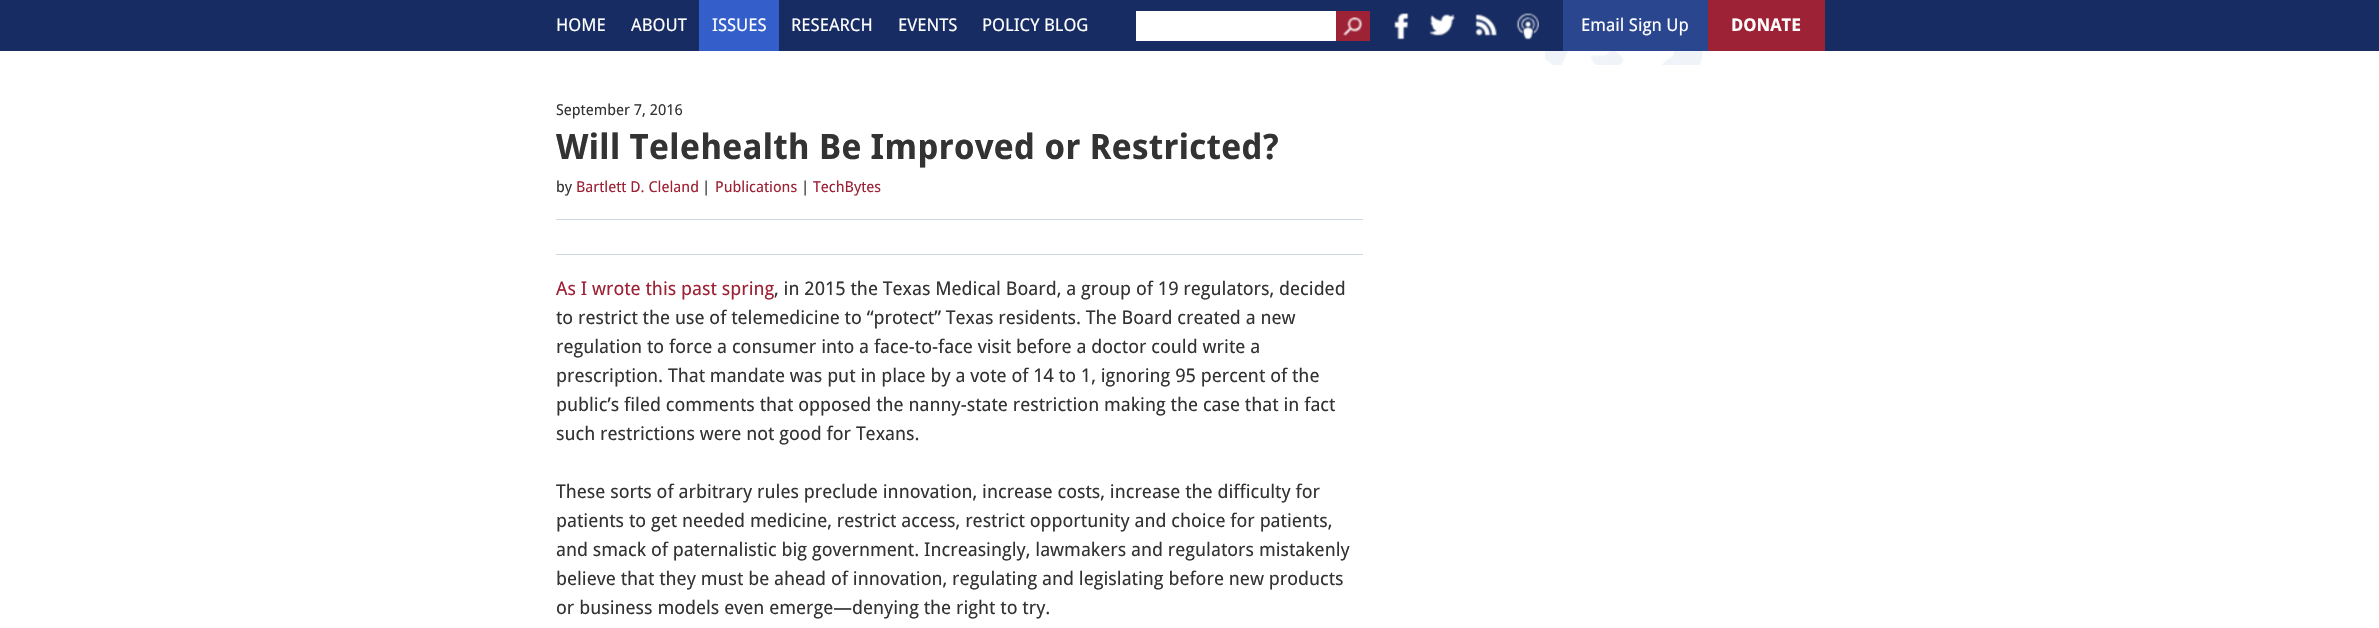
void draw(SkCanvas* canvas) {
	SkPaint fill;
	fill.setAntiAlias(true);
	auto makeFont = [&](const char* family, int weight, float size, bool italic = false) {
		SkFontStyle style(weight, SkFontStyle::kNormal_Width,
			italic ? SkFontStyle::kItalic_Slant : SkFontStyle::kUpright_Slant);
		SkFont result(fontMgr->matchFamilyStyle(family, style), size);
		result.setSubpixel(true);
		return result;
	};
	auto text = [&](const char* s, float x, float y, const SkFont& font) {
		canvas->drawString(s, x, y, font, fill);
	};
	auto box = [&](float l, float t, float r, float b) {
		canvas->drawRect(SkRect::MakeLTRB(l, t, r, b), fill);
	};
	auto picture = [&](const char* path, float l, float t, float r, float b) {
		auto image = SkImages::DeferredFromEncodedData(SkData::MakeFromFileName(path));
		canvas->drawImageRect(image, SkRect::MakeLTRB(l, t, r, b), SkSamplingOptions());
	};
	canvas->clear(0xFFFFFFFF);
	fill.setColor(0xFF172C62);
	box(0, 0, 2379, 51);
	fill.setColor(0xFF345FCB);
	box(699, 0, 779, 51);
	fill.setColor(0xFFFFFFFF);
	box(1136, 11, 1336, 41);
	fill.setColor(0xFF9D2235);
	box(1336, 11, 1370, 41);
	picture("image0.png", 1343, 17, 1363, 36);
	picture("image1.png", 1394, 13, 1409, 40);
	picture("image2.png", 1429, 14, 1456, 36);
	picture("image3.png", 1475, 14, 1497, 36);
	picture("image4.png", 1516, 13, 1539, 40);
	fill.setColor(0xFF29468E);
	box(1563, 0, 1708, 51);
	fill.setColor(0xFF9D2235);
	box(1708, 0, 1825, 51);
	picture("image5.png", 1543, 51, 1703, 65);
	fill.setColor(0xFFCDD7E5);
	box(556, 219, 1363, 220);
	box(556, 254, 1363, 255);
	auto font1 = makeFont("Droid Sans", 400, 17.5f);
	fill.setColor(0xFFFFFFFF);
	text("HOME", 556, 31, font1);
	text("ABOUT", 631, 31, font1);
	text("ISSUES", 712, 31, font1);
	text("RESEARCH", 791, 31, font1);
	text("EVENTS", 898, 31, font1);
	text("POLICY BLOG", 982, 31, font1);
	text("Email Sign Up", 1581, 31, font1);
	auto font2 = makeFont("Droid Sans", 700, 17.5f);
	text("DONATE", 1731, 31, font2);
	auto font3 = makeFont("Droid Sans", 400, 15);
	fill.setColor(0xFF333333);
	text("September 7, 2016", 556, 115, font3);
	auto font4 = makeFont("Droid Sans", 700, 35);
	text("Will Telehealth Be Improved or Restricted?", 556, 159, font4);
	text("by", 556, 192, font3);
	fill.setColor(0xFF9D2235);
	text("Bartlett D. Cleland", 576, 192, font3);
	fill.setColor(0xFF333333);
	text("|", 702, 192, font3);
	fill.setColor(0xFF9D2235);
	text("Publications", 715, 192, font3);
	fill.setColor(0xFF333333);
	text("|", 801, 192, font3);
	fill.setColor(0xFF9D2235);
	text("TechBytes", 813, 192, font3);
	auto font5 = makeFont("Droid Sans", 400, 18.75f);
	text("As I wrote this past spring", 556, 295, font5);
	fill.setColor(0xFF333333);
	text(", in 2015 the Texas Medical Board, a group of 19 regulators, decided", 774, 295, font5);
	text("to restrict the use of telemedicine to “protect” Texas residents. The Board created a new", 556, 324, font5);
	text("regulation to force a consumer into a face-to-face visit before a doctor could write a", 556, 353, font5);
	text("prescription. That mandate was put in place by a vote of 14 to 1, ignoring 95 percent of the", 556, 382, font5);
	text("public’s filed comments that opposed the nanny-state restriction making the case that in fact", 556, 411, font5);
	text("such restrictions were not good for Texans.", 556, 440, font5);
	text("These sorts of arbitrary rules preclude innovation, increase costs, increase the difficulty for", 556, 498, font5);
	text("patients to get needed medicine, restrict access, restrict opportunity and choice for patients,", 556, 527, font5);
	text("and smack of paternalistic big government. Increasingly, lawmakers and regulators mistakenly", 556, 556, font5);
	text("believe that they must be ahead of innovation, regulating and legislating before new products", 556, 585, font5);
	text("or business models even emerge—denying the right to try.", 556, 614, font5);
}
